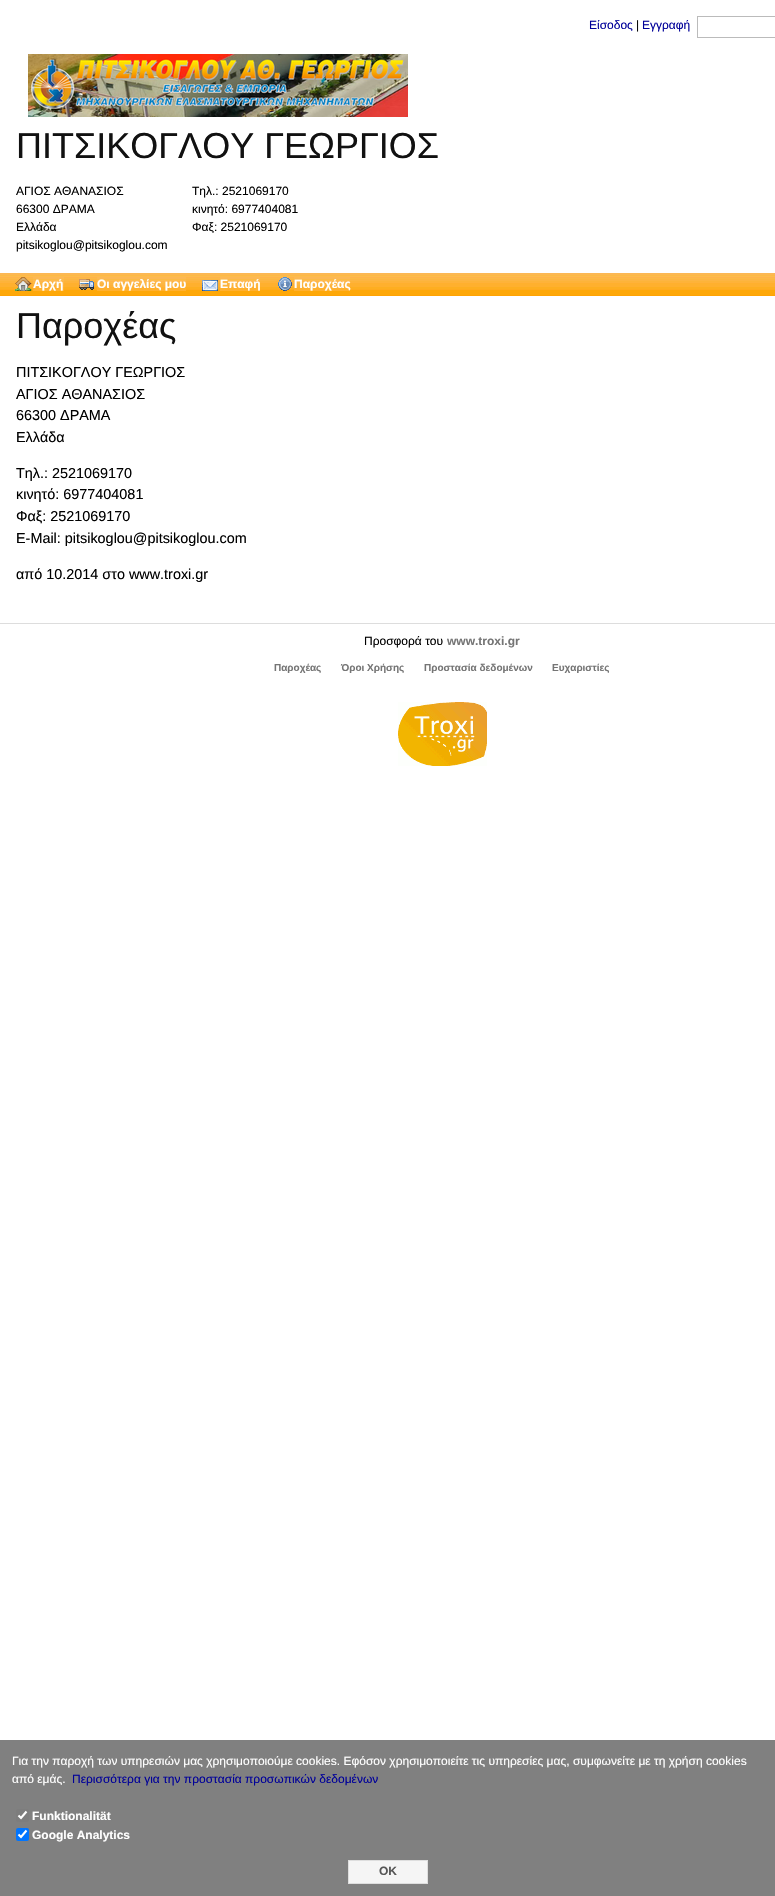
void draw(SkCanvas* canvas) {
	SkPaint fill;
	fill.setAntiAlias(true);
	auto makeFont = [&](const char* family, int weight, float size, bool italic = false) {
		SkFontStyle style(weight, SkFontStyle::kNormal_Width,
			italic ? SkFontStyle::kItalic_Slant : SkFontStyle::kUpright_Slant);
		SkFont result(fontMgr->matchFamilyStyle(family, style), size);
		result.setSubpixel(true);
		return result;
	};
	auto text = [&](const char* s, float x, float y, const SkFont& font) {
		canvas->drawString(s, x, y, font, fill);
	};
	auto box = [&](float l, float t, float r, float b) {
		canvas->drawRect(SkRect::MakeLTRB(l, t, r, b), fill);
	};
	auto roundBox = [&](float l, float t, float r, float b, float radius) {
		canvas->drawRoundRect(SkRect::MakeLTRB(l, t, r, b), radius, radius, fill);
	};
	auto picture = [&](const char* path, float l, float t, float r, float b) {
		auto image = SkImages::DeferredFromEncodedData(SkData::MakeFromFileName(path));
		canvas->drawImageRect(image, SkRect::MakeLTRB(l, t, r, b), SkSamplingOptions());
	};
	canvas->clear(0xFFFFFFFF);
	fill.setStyle(SkPaint::kStroke_Style);
	fill.setStrokeWidth(1);
	fill.setColor(0xFFBBBBBB);
	canvas->drawRect(SkRect::MakeLTRB(697.5f, 16.5f, 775.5f, 37.5f), fill);
	picture("image0.png", 28, 54, 408, 117);
	picture("image1.png", 0, 273, 775, 296);
	picture("image2.png", 15, 277, 32, 291);
	picture("image3.png", 33, 277, 64, 291);
	picture("image4.png", 79, 279, 94, 290);
	picture("image5.png", 97, 277, 186, 291);
	picture("image6.png", 220, 277, 260, 291);
	picture("image7.png", 202, 280, 218, 291);
	picture("image8.png", 278, 277, 294, 291);
	picture("image9.png", 294, 277, 350, 291);
	fill.setStyle(SkPaint::kFill_Style);
	fill.setColor(0xFFDDDDDD);
	box(0, 623, 775, 624);
	picture("image10.png", 398, 702, 487, 766);
	fill.setColor(0xFF808080);
	box(0, 1740, 775, 1896);
	fill.setColor(0xFF7D7D7D);
	roundBox(16, 1809, 29, 1822, 2);
	fill.setStyle(SkPaint::kStroke_Style);
	fill.setStrokeWidth(2.1f);
	fill.setColor(0xFFFFFFFF);
	canvas->drawPath(SkPathBuilder().moveTo(18.5f, 1815.5f).lineTo(21, 1818).lineTo(26.5f, 1811.5f).detach(), fill);
	fill.setStyle(SkPaint::kFill_Style);
	fill.setColor(0xFF0075FF);
	roundBox(16, 1828, 29, 1841, 2);
	fill.setStyle(SkPaint::kStroke_Style);
	fill.setColor(0xFFFFFFFF);
	canvas->drawPath(SkPathBuilder().moveTo(18.5f, 1834.5f).lineTo(21, 1837).lineTo(26.5f, 1830.5f).detach(), fill);
	fill.setStyle(SkPaint::kFill_Style);
	fill.setColor(0xFFF5F5F5);
	canvas->drawRect(SkRect::MakeLTRB(348.5f, 1860.5f, 427.5f, 1883.5f), fill);
	fill.setStyle(SkPaint::kStroke_Style);
	fill.setStrokeWidth(1);
	fill.setColor(0xFFDEDEDE);
	canvas->drawRect(SkRect::MakeLTRB(348.5f, 1860.5f, 427.5f, 1883.5f), fill);
	auto font1 = makeFont("Liberation Sans", 400, 12);
	fill.setStyle(SkPaint::kFill_Style);
	fill.setColor(0xFF000099);
	text("Είσοδος", 589, 29, font1);
	fill.setColor(0xFF000000);
	text("|", 636, 29, font1);
	fill.setColor(0xFF000099);
	text("Εγγραφή", 642, 29, font1);
	auto font2 = makeFont("Liberation Sans", 400, 36);
	fill.setColor(0xFF111111);
	text("ΠΙΤΣΙΚΟΓΛΟΥ ΓΕΩΡΓΙΟΣ", 16, 158, font2);
	fill.setColor(0xFF000000);
	text("ΑΓΙΟΣ ΑΘΑΝΑΣΙΟΣ", 16, 195, font1);
	text("66300 ΔΡΑΜΑ", 16, 213, font1);
	text("Ελλάδα", 16, 231, font1);
	text("pitsikoglou@pitsikoglou.com", 16, 249, font1);
	text("Τηλ.: 2521069170", 192, 195, font1);
	text("κινητό: 6977404081", 192, 213, font1);
	text("Φαξ: 2521069170", 192, 231, font1);
	auto font3 = makeFont("Liberation Sans", 700, 12);
	fill.setColor(0xFFFFFFFF);
	text("Αρχή", 33, 288, font3);
	text("Οι αγγελίες μου", 97, 288, font3);
	text("Επαφή", 220, 288, font3);
	text("Παροχέας", 294, 288, font3);
	fill.setColor(0xFF111111);
	text("Παροχέας", 16, 338, font2);
	auto font4 = makeFont("Liberation Sans", 400, 14.4f);
	fill.setColor(0xFF000000);
	text("ΠΙΤΣΙΚΟΓΛΟΥ ΓΕΩΡΓΙΟΣ", 16, 377, font4);
	text("ΑΓΙΟΣ ΑΘΑΝΑΣΙΟΣ", 16, 399, font4);
	text("66300 ΔΡΑΜΑ", 16, 420, font4);
	text("Ελλάδα", 16, 442, font4);
	text("Τηλ.: 2521069170", 16, 478, font4);
	text("κινητό: 6977404081", 16, 499, font4);
	text("Φαξ: 2521069170", 16, 521, font4);
	text("E-Mail: pitsikoglou@pitsikoglou.com", 16, 543, font4);
	text("από 10.2014 στο www.troxi.gr", 16, 579, font4);
	text("Προσφορά του", 364, 645, font1);
	fill.setColor(0xFF757575);
	text("www.troxi.gr", 447, 645, font3);
	auto font5 = makeFont("Liberation Sans", 700, 10);
	text("Παροχέας", 274, 671, font5);
	text("Όροι Χρήσης", 341, 671, font5);
	text("Προστασία δεδομένων", 424, 671, font5);
	text("Ευχαριστίες", 552, 671, font5);
	fill.setColor(0xFFFFFFFF);
	text("Για την παροχή των υπηρεσιών μας χρησιμοποιούμε cookies. Εφόσον χρησιμοποιείτε τις υπηρεσίες μας, συμφωνείτε με τη χρήση cookies", 12, 1765, font1);
	text("από εμάς.", 12, 1783, font1);
	fill.setColor(0xFF000099);
	text("Περισσότερα για την προστασία προσωπικών δεδομένων", 72, 1783, font1);
	fill.setColor(0xFFFFFFFF);
	text("Funktionalität", 32, 1820, font3);
	text("Google Analytics", 32, 1839, font3);
	fill.setColor(0xFF565656);
	text("OK", 379, 1875, font3);
}
